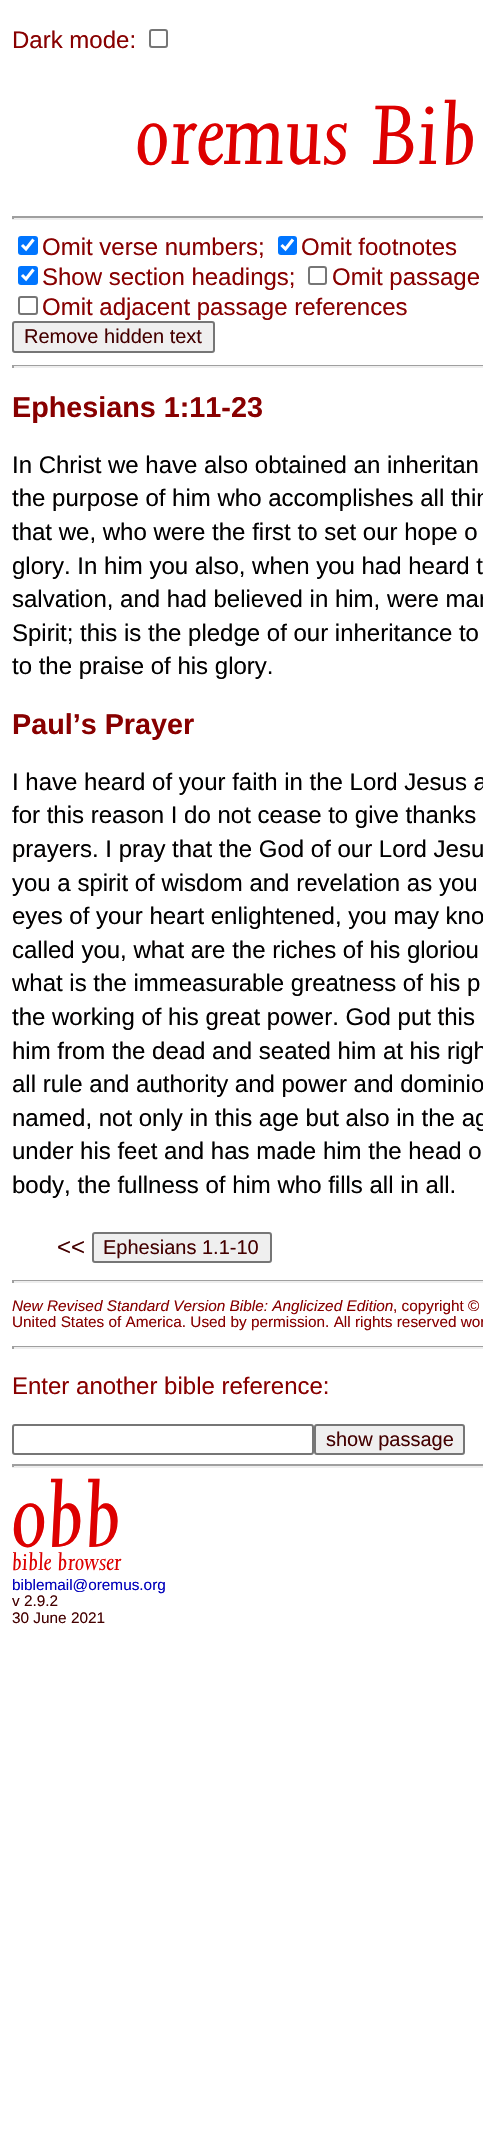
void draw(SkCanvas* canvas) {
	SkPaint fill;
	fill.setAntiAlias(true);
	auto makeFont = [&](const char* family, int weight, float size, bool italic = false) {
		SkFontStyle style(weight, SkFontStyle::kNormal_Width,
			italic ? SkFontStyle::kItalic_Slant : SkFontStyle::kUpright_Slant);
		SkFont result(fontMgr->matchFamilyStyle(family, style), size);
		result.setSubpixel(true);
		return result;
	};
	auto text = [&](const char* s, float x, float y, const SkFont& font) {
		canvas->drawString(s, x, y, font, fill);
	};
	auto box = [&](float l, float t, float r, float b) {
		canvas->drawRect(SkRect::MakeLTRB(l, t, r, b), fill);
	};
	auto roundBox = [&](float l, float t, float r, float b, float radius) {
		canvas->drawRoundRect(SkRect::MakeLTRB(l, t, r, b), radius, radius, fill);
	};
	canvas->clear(0xFFFFFFFF);
	fill.setStyle(SkPaint::kStroke_Style);
	fill.setStrokeWidth(2);
	fill.setColor(0xFF767676);
	canvas->drawRoundRect(SkRect::MakeLTRB(150, 30, 167, 47), 2, 2, fill);
	fill.setStyle(SkPaint::kFill_Style);
	fill.setColor(0xFF9F9F9F);
	box(12, 216, 483, 218);
	fill.setColor(0xFFEEEEEE);
	box(12, 218, 483, 220);
	fill.setColor(0xFF9F9F9F);
	box(12, 216, 14, 219);
	fill.setColor(0xFF0075FF);
	roundBox(18, 236, 38, 255, 3);
	fill.setStyle(SkPaint::kStroke_Style);
	fill.setStrokeWidth(3.1f);
	fill.setColor(0xFFFFFFFF);
	canvas->drawPath(SkPathBuilder().moveTo(22, 245).lineTo(26, 249).lineTo(33.5f, 239.5f).detach(), fill);
	fill.setStyle(SkPaint::kFill_Style);
	fill.setColor(0xFF0075FF);
	roundBox(278, 236, 297, 255, 3);
	fill.setStyle(SkPaint::kStroke_Style);
	fill.setColor(0xFFFFFFFF);
	canvas->drawPath(SkPathBuilder().moveTo(281.5f, 245).lineTo(285.5f, 249).lineTo(293, 239.5f).detach(), fill);
	fill.setStyle(SkPaint::kFill_Style);
	fill.setColor(0xFF0075FF);
	roundBox(18, 266, 38, 285, 3);
	fill.setStyle(SkPaint::kStroke_Style);
	fill.setColor(0xFFFFFFFF);
	canvas->drawPath(SkPathBuilder().moveTo(22, 275).lineTo(26, 279).lineTo(33.5f, 269.5f).detach(), fill);
	fill.setStrokeWidth(2);
	fill.setColor(0xFF767676);
	canvas->drawRoundRect(SkRect::MakeLTRB(309, 267, 326, 284), 2, 2, fill);
	canvas->drawRoundRect(SkRect::MakeLTRB(19, 297, 37, 314), 2, 2, fill);
	fill.setStyle(SkPaint::kFill_Style);
	fill.setColor(0xFFEFEFEF);
	canvas->drawRoundRect(SkRect::MakeLTRB(13, 322, 214, 352), 2, 2, fill);
	fill.setStyle(SkPaint::kStroke_Style);
	fill.setColor(0xFF767676);
	canvas->drawRoundRect(SkRect::MakeLTRB(13, 322, 214, 352), 2, 2, fill);
	fill.setStyle(SkPaint::kFill_Style);
	fill.setColor(0xFF9F9F9F);
	box(12, 365, 483, 366);
	fill.setColor(0xFFEEEEEE);
	box(12, 366, 483, 368);
	fill.setColor(0xFF9F9F9F);
	box(12, 365, 14, 368);
	fill.setColor(0xFFEFEFEF);
	canvas->drawRoundRect(SkRect::MakeLTRB(93, 1233, 271, 1262), 2, 2, fill);
	fill.setStyle(SkPaint::kStroke_Style);
	fill.setColor(0xFF767676);
	canvas->drawRoundRect(SkRect::MakeLTRB(93, 1233, 271, 1262), 2, 2, fill);
	fill.setStyle(SkPaint::kFill_Style);
	fill.setColor(0xFF9F9F9F);
	box(12, 1280, 483, 1281);
	fill.setColor(0xFFEEEEEE);
	box(12, 1281, 483, 1283);
	fill.setColor(0xFF9F9F9F);
	box(12, 1280, 14, 1283);
	box(12, 1346, 483, 1347);
	fill.setColor(0xFFEEEEEE);
	box(12, 1347, 483, 1349);
	fill.setColor(0xFF9F9F9F);
	box(12, 1346, 14, 1349);
	fill.setStyle(SkPaint::kStroke_Style);
	fill.setColor(0xFF767676);
	canvas->drawRoundRect(SkRect::MakeLTRB(13, 1425, 313, 1454), 2, 2, fill);
	fill.setStyle(SkPaint::kFill_Style);
	fill.setColor(0xFFEFEFEF);
	canvas->drawRoundRect(SkRect::MakeLTRB(315, 1425, 464, 1454), 2, 2, fill);
	fill.setStyle(SkPaint::kStroke_Style);
	fill.setColor(0xFF767676);
	canvas->drawRoundRect(SkRect::MakeLTRB(315, 1425, 464, 1454), 2, 2, fill);
	fill.setStyle(SkPaint::kFill_Style);
	fill.setColor(0xFF9F9F9F);
	box(12, 1464, 483, 1466);
	fill.setColor(0xFFEEEEEE);
	box(12, 1466, 483, 1468);
	fill.setColor(0xFF9F9F9F);
	box(12, 1464, 14, 1467);
	auto font1 = makeFont("Liberation Sans", 400, 24);
	fill.setColor(0xFF880000);
	text("Dark mode:", 12, 48, font1);
	auto font2 = makeFont("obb", 400, 97.5f);
	fill.setColor(0xFFDD0000);
	text("oremus Bib", 136, 164, font2);
	fill.setColor(0xFF880000);
	text("Omit verse numbers;", 42, 255, font1);
	text("Omit footnotes", 301, 255, font1);
	text("Show section headings;", 42, 285, font1);
	text("Omit passage", 332, 285, font1);
	text("Omit adjacent passage references", 42, 315, font1);
	auto font3 = makeFont("Liberation Sans", 400, 20);
	fill.setColor(0xFF440000);
	text("Remove hidden text", 24, 343, font3);
	auto font4 = makeFont("Liberation Sans", 700, 28.75f);
	fill.setColor(0xFF880000);
	text("Ephesians 1:11-23", 12, 417, font4);
	fill.setColor(0xFF010000);
	text("In Christ we have also obtained an inheritan", 12, 473, font1);
	text("the purpose of him who accomplishes all thin", 12, 506, font1);
	text("that we, who were the first to set our hope o", 12, 540, font1);
	text("glory. In him you also, when you had heard t", 12, 574, font1);
	text("salvation, and had believed in him, were mar", 12, 607, font1);
	text("Spirit; this is the pledge of our inheritance to", 12, 641, font1);
	text("to the praise of his glory.", 12, 674, font1);
	fill.setColor(0xFF880000);
	text("Paul’s Prayer", 12, 734, font4);
	fill.setColor(0xFF010000);
	text("I have heard of your faith in the Lord Jesus a", 12, 790, font1);
	text("for this reason I do not cease to give thanks", 12, 823, font1);
	text("prayers. I pray that the God of our Lord Jesu", 12, 857, font1);
	text("you a spirit of wisdom and revelation as you", 12, 891, font1);
	text("eyes of your heart enlightened, you may kno", 12, 924, font1);
	text("called you, what are the riches of his gloriou", 12, 958, font1);
	text("what is the immeasurable greatness of his p", 12, 991, font1);
	text("the working of his great power. God put this", 12, 1025, font1);
	text("him from the dead and seated him at his righ", 12, 1059, font1);
	text("all rule and authority and power and dominio", 12, 1092, font1);
	text("named, not only in this age but also in the ag", 12, 1126, font1);
	text("under his feet and has made him the head o", 12, 1159, font1);
	text("body, the fullness of him who fills all in all.", 12, 1193, font1);
	fill.setColor(0xFF440000);
	text("<<", 57, 1255, font1);
	text("Ephesians 1.1-10", 103, 1254, font3);
	auto font5 = makeFont("Liberation Sans", 400, 15.35f, true);
	fill.setColor(0xFF880000);
	text("New Revised Standard Version Bible: Anglicized Edition", 12, 1311, font5);
	auto font6 = makeFont("Liberation Sans", 400, 15.35f);
	text(", copyright ©", 393, 1311, font6);
	text("United States of America. Used by permission. All rights reserved wor", 12, 1327, font6);
	text("Enter another bible reference:", 12, 1394, font1);
	fill.setColor(0xFF440000);
	text("show passage", 326, 1446, font3);
	auto font7 = makeFont("obb", 400, 102);
	fill.setColor(0xFFDD0000);
	text("obb", 12, 1546, font7);
	auto font8 = makeFont("obb", 400, 27);
	text("bible browser", 12, 1570, font8);
	fill.setColor(0xFF0000BB);
	text("biblemail@oremus.org", 12, 1590, font6);
	fill.setColor(0xFF440000);
	text("v 2.9.2", 12, 1606, font6);
	text("30 June 2021", 12, 1623, font6);
}
